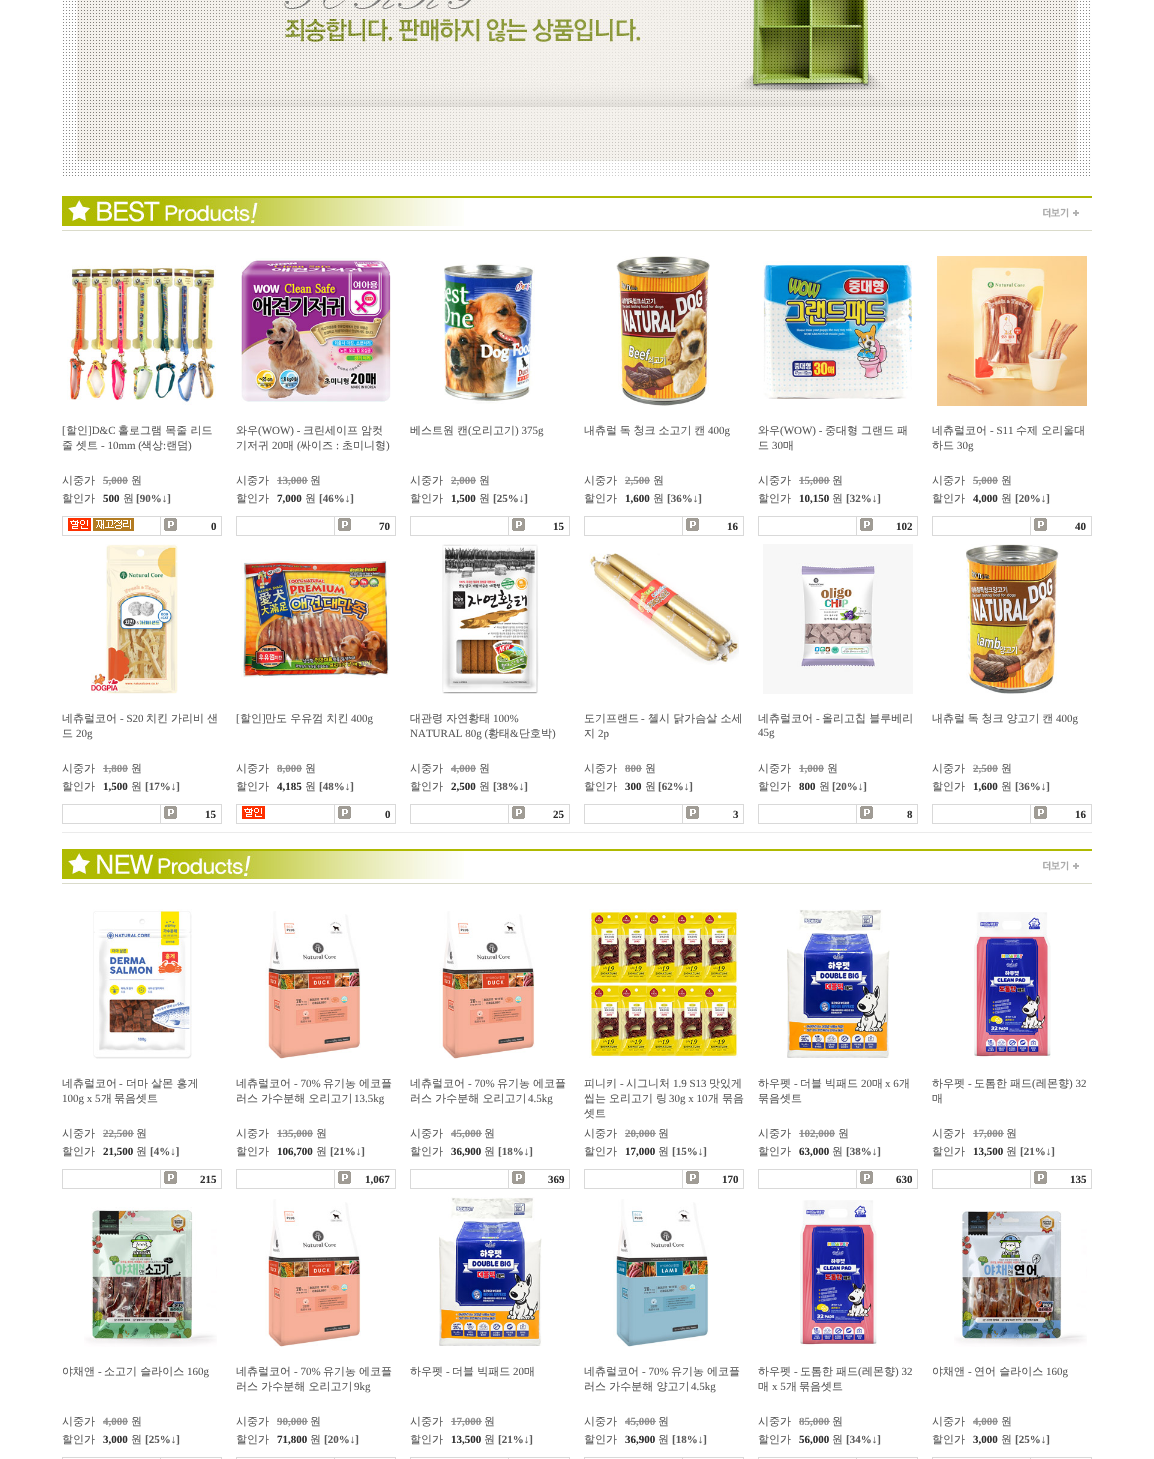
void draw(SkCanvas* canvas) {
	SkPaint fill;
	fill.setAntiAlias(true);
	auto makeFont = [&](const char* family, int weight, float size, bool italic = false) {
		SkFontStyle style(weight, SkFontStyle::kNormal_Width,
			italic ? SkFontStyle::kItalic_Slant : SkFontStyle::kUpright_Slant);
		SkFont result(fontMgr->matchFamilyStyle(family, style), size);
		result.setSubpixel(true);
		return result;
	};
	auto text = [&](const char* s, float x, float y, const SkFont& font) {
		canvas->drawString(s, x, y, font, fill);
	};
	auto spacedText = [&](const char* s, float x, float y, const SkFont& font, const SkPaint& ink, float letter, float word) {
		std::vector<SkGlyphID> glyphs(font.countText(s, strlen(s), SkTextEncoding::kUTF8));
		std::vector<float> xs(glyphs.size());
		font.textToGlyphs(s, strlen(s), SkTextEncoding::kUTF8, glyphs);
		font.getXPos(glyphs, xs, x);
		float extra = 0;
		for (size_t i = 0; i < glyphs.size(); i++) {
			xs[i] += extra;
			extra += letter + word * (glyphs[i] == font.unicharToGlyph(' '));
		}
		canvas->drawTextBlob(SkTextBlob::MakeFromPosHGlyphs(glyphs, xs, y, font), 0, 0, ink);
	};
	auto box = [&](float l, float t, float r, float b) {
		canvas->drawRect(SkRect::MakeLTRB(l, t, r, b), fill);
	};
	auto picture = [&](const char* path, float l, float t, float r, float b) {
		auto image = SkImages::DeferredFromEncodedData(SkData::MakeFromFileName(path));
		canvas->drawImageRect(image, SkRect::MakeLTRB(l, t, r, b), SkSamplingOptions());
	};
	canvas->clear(0xFFFFFFFF);
	picture("image0.png", 63, 0, 1091, 176);
	fill.setColor(0xFFAFBA01);
	box(62, 196, 1092, 198);
	picture("image1.png", 62, 198, 464, 226);
	picture("image2.png", 1043, 208, 1079, 218);
	fill.setColor(0xFFDADBCA);
	box(62, 230, 1092, 231);
	fill.setColor(0xFFEBEBEB);
	box(62, 832, 1092, 833);
	picture("image3.png", 67, 265, 216, 405);
	fill.setColor(0xFF909090);
	box(103, 480, 128, 481);
	fill.setStyle(SkPaint::kStroke_Style);
	fill.setStrokeWidth(1);
	fill.setColor(0xFFD9D9D9);
	canvas->drawRect(SkRect::MakeLTRB(62.5f, 516.5f, 221.5f, 535.5f), fill);
	picture("image4.png", 68, 518, 91, 531);
	picture("image5.png", 93, 518, 134, 531);
	fill.setStyle(SkPaint::kFill_Style);
	box(160, 517, 161, 535);
	picture("image6.png", 164, 518, 177, 531);
	picture("image7.png", 241, 258, 391, 402);
	fill.setColor(0xFF909090);
	box(277, 480, 308, 481);
	fill.setStyle(SkPaint::kStroke_Style);
	fill.setColor(0xFFD9D9D9);
	canvas->drawRect(SkRect::MakeLTRB(236.5f, 516.5f, 395.5f, 535.5f), fill);
	fill.setStyle(SkPaint::kFill_Style);
	box(334, 517, 335, 535);
	picture("image6.png", 338, 518, 351, 531);
	picture("image8.png", 444, 263, 535, 404);
	fill.setColor(0xFF909090);
	box(451, 480, 476, 481);
	fill.setStyle(SkPaint::kStroke_Style);
	fill.setColor(0xFFD9D9D9);
	canvas->drawRect(SkRect::MakeLTRB(410.5f, 516.5f, 569.5f, 535.5f), fill);
	fill.setStyle(SkPaint::kFill_Style);
	box(508, 517, 509, 535);
	picture("image6.png", 512, 518, 525, 531);
	picture("image9.png", 616, 256, 710, 406);
	fill.setColor(0xFF909090);
	box(625, 480, 650, 481);
	fill.setStyle(SkPaint::kStroke_Style);
	fill.setColor(0xFFD9D9D9);
	canvas->drawRect(SkRect::MakeLTRB(584.5f, 516.5f, 743.5f, 535.5f), fill);
	fill.setStyle(SkPaint::kFill_Style);
	box(682, 517, 683, 535);
	picture("image6.png", 686, 518, 699, 531);
	picture("image10.png", 763, 261, 912, 399);
	fill.setColor(0xFF909090);
	box(799, 480, 830, 481);
	fill.setStyle(SkPaint::kStroke_Style);
	fill.setColor(0xFFD9D9D9);
	canvas->drawRect(SkRect::MakeLTRB(758.5f, 516.5f, 917.5f, 535.5f), fill);
	fill.setStyle(SkPaint::kFill_Style);
	box(856, 517, 857, 535);
	picture("image6.png", 860, 518, 873, 531);
	picture("image11.png", 937, 256, 1087, 406);
	fill.setColor(0xFF909090);
	box(973, 480, 998, 481);
	fill.setStyle(SkPaint::kStroke_Style);
	fill.setColor(0xFFD9D9D9);
	canvas->drawRect(SkRect::MakeLTRB(932.5f, 516.5f, 1091.5f, 535.5f), fill);
	fill.setStyle(SkPaint::kFill_Style);
	box(1030, 517, 1031, 535);
	picture("image6.png", 1034, 518, 1047, 531);
	picture("image12.png", 91, 544, 178, 694);
	fill.setColor(0xFF909090);
	box(103, 768, 128, 769);
	fill.setStyle(SkPaint::kStroke_Style);
	fill.setColor(0xFFD9D9D9);
	canvas->drawRect(SkRect::MakeLTRB(62.5f, 804.5f, 221.5f, 823.5f), fill);
	fill.setStyle(SkPaint::kFill_Style);
	box(160, 805, 161, 823);
	picture("image6.png", 164, 806, 177, 819);
	picture("image13.png", 241, 559, 390, 678);
	fill.setColor(0xFF909090);
	box(277, 768, 302, 769);
	fill.setStyle(SkPaint::kStroke_Style);
	fill.setColor(0xFFD9D9D9);
	canvas->drawRect(SkRect::MakeLTRB(236.5f, 804.5f, 395.5f, 823.5f), fill);
	picture("image4.png", 242, 806, 265, 819);
	fill.setStyle(SkPaint::kFill_Style);
	box(334, 805, 335, 823);
	picture("image6.png", 338, 806, 351, 819);
	picture("image14.png", 442, 544, 539, 694);
	fill.setColor(0xFF909090);
	box(451, 768, 476, 769);
	fill.setStyle(SkPaint::kStroke_Style);
	fill.setColor(0xFFD9D9D9);
	canvas->drawRect(SkRect::MakeLTRB(410.5f, 804.5f, 569.5f, 823.5f), fill);
	fill.setStyle(SkPaint::kFill_Style);
	box(508, 805, 509, 823);
	picture("image6.png", 512, 806, 525, 819);
	picture("image15.png", 589, 553, 739, 665);
	fill.setColor(0xFF909090);
	box(625, 768, 642, 769);
	fill.setStyle(SkPaint::kStroke_Style);
	fill.setColor(0xFFD9D9D9);
	canvas->drawRect(SkRect::MakeLTRB(584.5f, 804.5f, 743.5f, 823.5f), fill);
	fill.setStyle(SkPaint::kFill_Style);
	box(682, 805, 683, 823);
	picture("image6.png", 686, 806, 699, 819);
	picture("image16.png", 763, 544, 913, 694);
	fill.setColor(0xFF909090);
	box(799, 768, 824, 769);
	fill.setStyle(SkPaint::kStroke_Style);
	fill.setColor(0xFFD9D9D9);
	canvas->drawRect(SkRect::MakeLTRB(758.5f, 804.5f, 917.5f, 823.5f), fill);
	fill.setStyle(SkPaint::kFill_Style);
	box(856, 805, 857, 823);
	picture("image6.png", 860, 806, 873, 819);
	picture("image17.png", 966, 544, 1059, 694);
	fill.setColor(0xFF909090);
	box(973, 768, 998, 769);
	fill.setStyle(SkPaint::kStroke_Style);
	fill.setColor(0xFFD9D9D9);
	canvas->drawRect(SkRect::MakeLTRB(932.5f, 804.5f, 1091.5f, 823.5f), fill);
	fill.setStyle(SkPaint::kFill_Style);
	box(1030, 805, 1031, 823);
	picture("image6.png", 1034, 806, 1047, 819);
	fill.setColor(0xFFAFBA01);
	box(62, 849, 1092, 851);
	picture("image18.png", 62, 851, 464, 879);
	picture("image2.png", 1043, 861, 1079, 871);
	fill.setColor(0xFFDADBCA);
	box(62, 883, 1092, 884);
	picture("image19.png", 93, 909, 192, 1059);
	fill.setColor(0xFF909090);
	box(103, 1133, 134, 1134);
	fill.setStyle(SkPaint::kStroke_Style);
	fill.setColor(0xFFD9D9D9);
	canvas->drawRect(SkRect::MakeLTRB(62.5f, 1169.5f, 221.5f, 1188.5f), fill);
	fill.setStyle(SkPaint::kFill_Style);
	box(160, 1170, 161, 1188);
	picture("image6.png", 164, 1171, 177, 1184);
	picture("image20.png", 265, 911, 361, 1059);
	fill.setColor(0xFF909090);
	box(277, 1133, 313, 1134);
	fill.setStyle(SkPaint::kStroke_Style);
	fill.setColor(0xFFD9D9D9);
	canvas->drawRect(SkRect::MakeLTRB(236.5f, 1169.5f, 395.5f, 1188.5f), fill);
	fill.setStyle(SkPaint::kFill_Style);
	box(334, 1170, 335, 1188);
	picture("image6.png", 338, 1171, 351, 1184);
	picture("image21.png", 439, 911, 535, 1059);
	fill.setColor(0xFF909090);
	box(451, 1133, 482, 1134);
	fill.setStyle(SkPaint::kStroke_Style);
	fill.setColor(0xFFD9D9D9);
	canvas->drawRect(SkRect::MakeLTRB(410.5f, 1169.5f, 569.5f, 1188.5f), fill);
	fill.setStyle(SkPaint::kFill_Style);
	box(508, 1170, 509, 1188);
	picture("image6.png", 512, 1171, 525, 1184);
	picture("image22.png", 589, 909, 738, 1058);
	fill.setColor(0xFF909090);
	box(625, 1133, 656, 1134);
	fill.setStyle(SkPaint::kStroke_Style);
	fill.setColor(0xFFD9D9D9);
	canvas->drawRect(SkRect::MakeLTRB(584.5f, 1169.5f, 743.5f, 1188.5f), fill);
	fill.setStyle(SkPaint::kFill_Style);
	box(682, 1170, 683, 1188);
	picture("image6.png", 686, 1171, 699, 1184);
	picture("image23.png", 787, 909, 890, 1058);
	fill.setColor(0xFF909090);
	box(799, 1133, 835, 1134);
	fill.setStyle(SkPaint::kStroke_Style);
	fill.setColor(0xFFD9D9D9);
	canvas->drawRect(SkRect::MakeLTRB(758.5f, 1169.5f, 917.5f, 1188.5f), fill);
	fill.setStyle(SkPaint::kFill_Style);
	box(856, 1170, 857, 1188);
	picture("image6.png", 860, 1171, 873, 1184);
	picture("image24.png", 974, 912, 1051, 1058);
	fill.setColor(0xFF909090);
	box(973, 1133, 1004, 1134);
	fill.setStyle(SkPaint::kStroke_Style);
	fill.setColor(0xFFD9D9D9);
	canvas->drawRect(SkRect::MakeLTRB(932.5f, 1169.5f, 1091.5f, 1188.5f), fill);
	fill.setStyle(SkPaint::kFill_Style);
	box(1030, 1170, 1031, 1188);
	picture("image6.png", 1034, 1171, 1047, 1184);
	picture("image25.png", 84, 1207, 217, 1347);
	fill.setColor(0xFF909090);
	box(103, 1421, 128, 1422);
	fill.setStyle(SkPaint::kStroke_Style);
	fill.setColor(0xFFD9D9D9);
	canvas->drawRect(SkRect::MakeLTRB(62.5f, 1457.5f, 221.5f, 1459.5f), fill);
	fill.setStyle(SkPaint::kFill_Style);
	box(160, 1458, 161, 1459);
	picture("image26.png", 265, 1199, 361, 1347);
	fill.setColor(0xFF909090);
	box(277, 1421, 308, 1422);
	fill.setStyle(SkPaint::kStroke_Style);
	fill.setColor(0xFFD9D9D9);
	canvas->drawRect(SkRect::MakeLTRB(236.5f, 1457.5f, 395.5f, 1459.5f), fill);
	fill.setStyle(SkPaint::kFill_Style);
	box(334, 1458, 335, 1459);
	picture("image27.png", 439, 1197, 542, 1346);
	fill.setColor(0xFF909090);
	box(451, 1421, 482, 1422);
	fill.setStyle(SkPaint::kStroke_Style);
	fill.setColor(0xFFD9D9D9);
	canvas->drawRect(SkRect::MakeLTRB(410.5f, 1457.5f, 569.5f, 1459.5f), fill);
	fill.setStyle(SkPaint::kFill_Style);
	box(508, 1458, 509, 1459);
	picture("image28.png", 613, 1199, 709, 1347);
	fill.setColor(0xFF909090);
	box(625, 1421, 656, 1422);
	fill.setStyle(SkPaint::kStroke_Style);
	fill.setColor(0xFFD9D9D9);
	canvas->drawRect(SkRect::MakeLTRB(584.5f, 1457.5f, 743.5f, 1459.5f), fill);
	fill.setStyle(SkPaint::kFill_Style);
	box(682, 1458, 683, 1459);
	picture("image29.png", 800, 1200, 877, 1346);
	fill.setColor(0xFF909090);
	box(799, 1421, 830, 1422);
	fill.setStyle(SkPaint::kStroke_Style);
	fill.setColor(0xFFD9D9D9);
	canvas->drawRect(SkRect::MakeLTRB(758.5f, 1457.5f, 917.5f, 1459.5f), fill);
	fill.setStyle(SkPaint::kFill_Style);
	box(856, 1458, 857, 1459);
	picture("image30.png", 954, 1211, 1087, 1347);
	fill.setColor(0xFF909090);
	box(973, 1421, 998, 1422);
	fill.setStyle(SkPaint::kStroke_Style);
	fill.setColor(0xFFD9D9D9);
	canvas->drawRect(SkRect::MakeLTRB(932.5f, 1457.5f, 1091.5f, 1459.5f), fill);
	fill.setStyle(SkPaint::kFill_Style);
	box(1030, 1458, 1031, 1459);
	auto font1 = makeFont("Liberation Serif", 400, 11);
	fill.setColor(0xFF5A5A5A);
	text("[", 62, 434, font1);
	auto font2 = makeFont("WenQuanYi Zen Hei", 500, 11);
	text("할인", 66, 434, font2);
	text("]D&C", 88, 434, font1);
	text("홀로그램 목줄 리드", 118, 434, font2);
	text("줄", 62, 449, font2);
	text("셋트", 76, 449, font2);
	text("- 10mm (", 101, 449, font1);
	text("색상 랜덤", 141, 449, font2);
	text(")", 188, 449, font1);
	text(":", 163, 449, font1);
	text("시중가", 62, 484, font2);
	auto font3 = makeFont("Liberation Serif", 700, 11);
	fill.setColor(0xFF909090);
	text("5,000", 103, 484, font3);
	fill.setColor(0xFF5A5A5A);
	text("원", 131, 484, font2);
	text("할인가", 62, 502, font2);
	fill.setColor(0xFF2F2F2F);
	text("500", 103, 502, font3);
	fill.setColor(0xFF5A5A5A);
	text("원", 123, 502, font2);
	text("[90%↓]", 136, 502, font3);
	fill.setColor(0xFF2F2F2F);
	text("0", 211, 530, font3);
	fill.setColor(0xFF5A5A5A);
	text("와우", 236, 434, font2);
	text("(WOW) -", 258, 434, font1);
	text("크린세이프", 303, 434, font2);
	text("암컷", 361, 434, font2);
	text("기저귀", 236, 449, font2);
	text("20", 272, 449, font1);
	text("매", 283, 449, font2);
	text("(", 297, 449, font1);
	text("싸이즈", 300, 449, font2);
	text(":", 336, 449, font1);
	text("초미니형", 342, 449, font2);
	text(")", 386, 449, font1);
	text("시중가", 236, 484, font2);
	fill.setColor(0xFF909090);
	text("13,000", 277, 484, font3);
	fill.setColor(0xFF5A5A5A);
	text("원", 310, 484, font2);
	text("할인가", 236, 502, font2);
	fill.setColor(0xFF2F2F2F);
	text("7,000", 277, 502, font3);
	fill.setColor(0xFF5A5A5A);
	text("원", 305, 502, font2);
	text("[46%↓]", 319, 502, font3);
	fill.setColor(0xFF2F2F2F);
	text("70", 379, 530, font3);
	fill.setColor(0xFF5A5A5A);
	text("베스트원", 410, 434, font2);
	text("캔", 457, 434, font2);
	text("(", 468, 434, font1);
	text("오리고기", 471, 434, font2);
	text(") 375g", 515, 434, font1);
	text("시중가", 410, 484, font2);
	fill.setColor(0xFF909090);
	text("2,000", 451, 484, font3);
	fill.setColor(0xFF5A5A5A);
	text("원", 479, 484, font2);
	text("할인가", 410, 502, font2);
	fill.setColor(0xFF2F2F2F);
	text("1,500", 451, 502, font3);
	fill.setColor(0xFF5A5A5A);
	text("원", 479, 502, font2);
	text("[25%↓]", 493, 502, font3);
	fill.setColor(0xFF2F2F2F);
	text("15", 553, 530, font3);
	fill.setColor(0xFF5A5A5A);
	spacedText("내츄럴 독 청크 소고기 캔", 584, 434, font2, fill, 0, -0.5f);
	text("400g", 708, 434, font1);
	text("시중가", 584, 484, font2);
	fill.setColor(0xFF909090);
	text("2,500", 625, 484, font3);
	fill.setColor(0xFF5A5A5A);
	text("원", 653, 484, font2);
	text("할인가", 584, 502, font2);
	fill.setColor(0xFF2F2F2F);
	text("1,600", 625, 502, font3);
	fill.setColor(0xFF5A5A5A);
	text("원", 653, 502, font2);
	text("[36%↓]", 667, 502, font3);
	fill.setColor(0xFF2F2F2F);
	text("16", 727, 530, font3);
	fill.setColor(0xFF5A5A5A);
	text("와우", 758, 434, font2);
	text("(WOW) -", 780, 434, font1);
	text("중대형", 825, 434, font2);
	text("그랜드", 861, 434, font2);
	text("패", 897, 434, font2);
	text("드", 758, 449, font2);
	text("30", 772, 449, font1);
	text("매", 783, 449, font2);
	text("시중가", 758, 484, font2);
	fill.setColor(0xFF909090);
	text("15,000", 799, 484, font3);
	fill.setColor(0xFF5A5A5A);
	text("원", 832, 484, font2);
	text("할인가", 758, 502, font2);
	fill.setColor(0xFF2F2F2F);
	text("10,150", 799, 502, font3);
	fill.setColor(0xFF5A5A5A);
	text("원", 832, 502, font2);
	text("[32%↓]", 846, 502, font3);
	fill.setColor(0xFF2F2F2F);
	text("102", 896, 530, font3);
	fill.setColor(0xFF5A5A5A);
	text("네츄럴코어", 932, 434, font2);
	text("- S11", 990, 434, font1);
	text("수제 오리울대", 1016, 434, font2);
	text("하드", 932, 449, font2);
	text("30g", 957, 449, font1);
	text("시중가", 932, 484, font2);
	fill.setColor(0xFF909090);
	text("5,000", 973, 484, font3);
	fill.setColor(0xFF5A5A5A);
	text("원", 1001, 484, font2);
	text("할인가", 932, 502, font2);
	fill.setColor(0xFF2F2F2F);
	text("4,000", 973, 502, font3);
	fill.setColor(0xFF5A5A5A);
	text("원", 1001, 502, font2);
	text("[20%↓]", 1015, 502, font3);
	fill.setColor(0xFF2F2F2F);
	text("40", 1075, 530, font3);
	fill.setColor(0xFF5A5A5A);
	text("네츄럴코어", 62, 722, font2);
	text("- S20", 120, 722, font1);
	text("치킨", 146, 722, font2);
	text("가리비", 171, 722, font2);
	text("샌", 207, 722, font2);
	text("드", 62, 737, font2);
	text("20g", 76, 737, font1);
	text("시중가", 62, 772, font2);
	fill.setColor(0xFF909090);
	text("1,800", 103, 772, font3);
	fill.setColor(0xFF5A5A5A);
	text("원", 131, 772, font2);
	text("할인가", 62, 790, font2);
	fill.setColor(0xFF2F2F2F);
	text("1,500", 103, 790, font3);
	fill.setColor(0xFF5A5A5A);
	text("원", 131, 790, font2);
	text("[17%↓]", 145, 790, font3);
	fill.setColor(0xFF2F2F2F);
	text("15", 205, 818, font3);
	fill.setColor(0xFF5A5A5A);
	text("[", 236, 722, font1);
	text("할인", 240, 722, font2);
	text("]", 262, 722, font1);
	text("만도 우유껌 치킨", 265, 722, font2);
	text("400g", 351, 722, font1);
	text("시중가", 236, 772, font2);
	fill.setColor(0xFF909090);
	text("8,000", 277, 772, font3);
	fill.setColor(0xFF5A5A5A);
	text("원", 305, 772, font2);
	text("할인가", 236, 790, font2);
	fill.setColor(0xFF2F2F2F);
	text("4,185", 277, 790, font3);
	fill.setColor(0xFF5A5A5A);
	text("원", 305, 790, font2);
	text("[48%↓]", 319, 790, font3);
	fill.setColor(0xFF2F2F2F);
	text("0", 385, 818, font3);
	fill.setColor(0xFF5A5A5A);
	text("대관령 자연황태", 410, 722, font2);
	text("100%", 493, 722, font1);
	text("NATURAL 80g (", 410, 737, font1);
	text("황태", 488, 737, font2);
	text("&", 510, 737, font1);
	text("단호박", 519, 737, font2);
	text(")", 552, 737, font1);
	text("시중가", 410, 772, font2);
	fill.setColor(0xFF909090);
	text("4,000", 451, 772, font3);
	fill.setColor(0xFF5A5A5A);
	text("원", 479, 772, font2);
	text("할인가", 410, 790, font2);
	fill.setColor(0xFF2F2F2F);
	text("2,500", 451, 790, font3);
	fill.setColor(0xFF5A5A5A);
	text("원", 479, 790, font2);
	text("[38%↓]", 493, 790, font3);
	fill.setColor(0xFF2F2F2F);
	text("25", 553, 818, font3);
	fill.setColor(0xFF5A5A5A);
	text("도기프랜드", 584, 722, font2);
	text("-", 641, 722, font1);
	text("첼시 닭가슴살 소세", 648, 722, font2);
	text("지", 584, 737, font2);
	text("2p", 598, 737, font1);
	text("시중가", 584, 772, font2);
	fill.setColor(0xFF909090);
	text("800", 625, 772, font3);
	fill.setColor(0xFF5A5A5A);
	text("원", 645, 772, font2);
	text("할인가", 584, 790, font2);
	fill.setColor(0xFF2F2F2F);
	text("300", 625, 790, font3);
	fill.setColor(0xFF5A5A5A);
	text("원", 645, 790, font2);
	text("[62%↓]", 658, 790, font3);
	fill.setColor(0xFF2F2F2F);
	text("3", 733, 818, font3);
	fill.setColor(0xFF5A5A5A);
	text("네츄럴코어", 758, 722, font2);
	text("-", 816, 722, font1);
	text("올리고칩 블루베리", 822, 722, font2);
	text("45g", 758, 736, font1);
	text("시중가", 758, 772, font2);
	fill.setColor(0xFF909090);
	text("1,000", 799, 772, font3);
	fill.setColor(0xFF5A5A5A);
	text("원", 827, 772, font2);
	text("할인가", 758, 790, font2);
	fill.setColor(0xFF2F2F2F);
	text("800", 799, 790, font3);
	fill.setColor(0xFF5A5A5A);
	text("원", 819, 790, font2);
	text("[20%↓]", 832, 790, font3);
	fill.setColor(0xFF2F2F2F);
	text("8", 907, 818, font3);
	fill.setColor(0xFF5A5A5A);
	spacedText("내츄럴 독 청크 양고기 캔", 932, 722, font2, fill, 0, -0.5f);
	text("400g", 1056, 722, font1);
	text("시중가", 932, 772, font2);
	fill.setColor(0xFF909090);
	text("2,500", 973, 772, font3);
	fill.setColor(0xFF5A5A5A);
	text("원", 1001, 772, font2);
	text("할인가", 932, 790, font2);
	fill.setColor(0xFF2F2F2F);
	text("1,600", 973, 790, font3);
	fill.setColor(0xFF5A5A5A);
	text("원", 1001, 790, font2);
	text("[36%↓]", 1015, 790, font3);
	fill.setColor(0xFF2F2F2F);
	text("16", 1075, 818, font3);
	fill.setColor(0xFF5A5A5A);
	text("네츄럴코어", 62, 1087, font2);
	text("-", 119, 1087, font1);
	text("더마 살몬 홍게", 126, 1087, font2);
	text("100g x 5", 62, 1102, font1);
	text("개", 101, 1102, font2);
	text("묶음셋트", 114, 1102, font2);
	text("시중가", 62, 1137, font2);
	fill.setColor(0xFF909090);
	text("22,500", 103, 1137, font3);
	fill.setColor(0xFF5A5A5A);
	text("원", 136, 1137, font2);
	text("할인가", 62, 1155, font2);
	fill.setColor(0xFF2F2F2F);
	text("21,500", 103, 1155, font3);
	fill.setColor(0xFF5A5A5A);
	text("원", 136, 1155, font2);
	text("[4%↓]", 150, 1155, font3);
	fill.setColor(0xFF2F2F2F);
	text("215", 200, 1183, font3);
	fill.setColor(0xFF5A5A5A);
	text("네츄럴코어", 236, 1087, font2);
	text("- 70%", 294, 1087, font1);
	text("유기농", 323, 1087, font2);
	text("에코플", 359, 1087, font2);
	text("러스 가수분해 오리고기", 236, 1102, font2);
	text("13.5kg", 354, 1102, font1);
	text("시중가", 236, 1137, font2);
	fill.setColor(0xFF909090);
	text("135,000", 277, 1137, font3);
	fill.setColor(0xFF5A5A5A);
	text("원", 316, 1137, font2);
	text("할인가", 236, 1155, font2);
	fill.setColor(0xFF2F2F2F);
	text("106,700", 277, 1155, font3);
	fill.setColor(0xFF5A5A5A);
	text("원", 316, 1155, font2);
	text("[21%↓]", 330, 1155, font3);
	fill.setColor(0xFF2F2F2F);
	text("1,067", 365, 1183, font3);
	fill.setColor(0xFF5A5A5A);
	text("네츄럴코어", 410, 1087, font2);
	text("- 70%", 468, 1087, font1);
	text("유기농", 497, 1087, font2);
	text("에코플", 533, 1087, font2);
	text("러스 가수분해 오리고기", 410, 1102, font2);
	text("4.5kg", 528, 1102, font1);
	text("시중가", 410, 1137, font2);
	fill.setColor(0xFF909090);
	text("45,000", 451, 1137, font3);
	fill.setColor(0xFF5A5A5A);
	text("원", 484, 1137, font2);
	text("할인가", 410, 1155, font2);
	fill.setColor(0xFF2F2F2F);
	text("36,900", 451, 1155, font3);
	fill.setColor(0xFF5A5A5A);
	text("원", 484, 1155, font2);
	text("[18%↓]", 498, 1155, font3);
	fill.setColor(0xFF2F2F2F);
	text("369", 548, 1183, font3);
	fill.setColor(0xFF5A5A5A);
	text("피니키", 584, 1087, font2);
	text("-", 620, 1087, font1);
	text("시그니처", 626, 1087, font2);
	text("1.9 S13", 673, 1087, font1);
	text("맛있게", 709, 1087, font2);
	text("씹는", 584, 1102, font2);
	text("오리고기", 609, 1102, font2);
	text("링", 656, 1102, font2);
	text("30g x 10", 669, 1102, font1);
	text("개", 708, 1102, font2);
	text("묶음", 722, 1102, font2);
	text("셋트", 584, 1117, font2);
	text("시중가", 584, 1137, font2);
	fill.setColor(0xFF909090);
	text("20,000", 625, 1137, font3);
	fill.setColor(0xFF5A5A5A);
	text("원", 658, 1137, font2);
	text("할인가", 584, 1155, font2);
	fill.setColor(0xFF2F2F2F);
	text("17,000", 625, 1155, font3);
	fill.setColor(0xFF5A5A5A);
	text("원", 658, 1155, font2);
	text("[15%↓]", 672, 1155, font3);
	fill.setColor(0xFF2F2F2F);
	text("170", 722, 1183, font3);
	fill.setColor(0xFF5A5A5A);
	text("하우펫", 758, 1087, font2);
	text("-", 794, 1087, font1);
	text("더블", 800, 1087, font2);
	text("빅패드", 825, 1087, font2);
	text("20", 861, 1087, font1);
	text("매", 872, 1087, font2);
	text("x 6", 885, 1087, font1);
	text("개", 899, 1087, font2);
	text("묶음셋트", 758, 1102, font2);
	text("시중가", 758, 1137, font2);
	fill.setColor(0xFF909090);
	text("102,000", 799, 1137, font3);
	fill.setColor(0xFF5A5A5A);
	text("원", 838, 1137, font2);
	text("할인가", 758, 1155, font2);
	fill.setColor(0xFF2F2F2F);
	text("63,000", 799, 1155, font3);
	fill.setColor(0xFF5A5A5A);
	text("원", 832, 1155, font2);
	text("[38%↓]", 846, 1155, font3);
	fill.setColor(0xFF2F2F2F);
	text("630", 896, 1183, font3);
	fill.setColor(0xFF5A5A5A);
	text("하우펫", 932, 1087, font2);
	text("-", 968, 1087, font1);
	text("도톰한", 974, 1087, font2);
	text("패드", 1010, 1087, font2);
	text("(", 1032, 1087, font1);
	text("레몬향", 1036, 1087, font2);
	text(") 32", 1069, 1087, font1);
	text("매", 932, 1102, font2);
	text("시중가", 932, 1137, font2);
	fill.setColor(0xFF909090);
	text("17,000", 973, 1137, font3);
	fill.setColor(0xFF5A5A5A);
	text("원", 1006, 1137, font2);
	text("할인가", 932, 1155, font2);
	fill.setColor(0xFF2F2F2F);
	text("13,500", 973, 1155, font3);
	fill.setColor(0xFF5A5A5A);
	text("원", 1006, 1155, font2);
	text("[21%↓]", 1020, 1155, font3);
	fill.setColor(0xFF2F2F2F);
	text("135", 1070, 1183, font3);
	fill.setColor(0xFF5A5A5A);
	text("야채앤", 62, 1375, font2);
	text("-", 98, 1375, font1);
	text("소고기 슬라이스", 104, 1375, font2);
	text("160g", 187, 1375, font1);
	text("시중가", 62, 1425, font2);
	fill.setColor(0xFF909090);
	text("4,000", 103, 1425, font3);
	fill.setColor(0xFF5A5A5A);
	text("원", 131, 1425, font2);
	text("할인가", 62, 1443, font2);
	fill.setColor(0xFF2F2F2F);
	text("3,000", 103, 1443, font3);
	fill.setColor(0xFF5A5A5A);
	text("원", 131, 1443, font2);
	text("[25%↓]", 145, 1443, font3);
	text("네츄럴코어", 236, 1375, font2);
	text("- 70%", 294, 1375, font1);
	text("유기농", 323, 1375, font2);
	text("에코플", 359, 1375, font2);
	text("러스 가수분해 오리고기", 236, 1390, font2);
	text("9kg", 354, 1390, font1);
	text("시중가", 236, 1425, font2);
	fill.setColor(0xFF909090);
	text("90,000", 277, 1425, font3);
	fill.setColor(0xFF5A5A5A);
	text("원", 310, 1425, font2);
	text("할인가", 236, 1443, font2);
	fill.setColor(0xFF2F2F2F);
	text("71,800", 277, 1443, font3);
	fill.setColor(0xFF5A5A5A);
	text("원", 310, 1443, font2);
	text("[20%↓]", 324, 1443, font3);
	text("하우펫", 410, 1375, font2);
	text("-", 446, 1375, font1);
	text("더블 빅패드", 452, 1375, font2);
	text("20", 513, 1375, font1);
	text("매", 524, 1375, font2);
	text("시중가", 410, 1425, font2);
	fill.setColor(0xFF909090);
	text("17,000", 451, 1425, font3);
	fill.setColor(0xFF5A5A5A);
	text("원", 484, 1425, font2);
	text("할인가", 410, 1443, font2);
	fill.setColor(0xFF2F2F2F);
	text("13,500", 451, 1443, font3);
	fill.setColor(0xFF5A5A5A);
	text("원", 484, 1443, font2);
	text("[21%↓]", 498, 1443, font3);
	text("네츄럴코어", 584, 1375, font2);
	text("- 70%", 642, 1375, font1);
	text("유기농", 671, 1375, font2);
	text("에코플", 707, 1375, font2);
	text("러스 가수분해 양고기", 584, 1390, font2);
	text("4.5kg", 691, 1390, font1);
	text("시중가", 584, 1425, font2);
	fill.setColor(0xFF909090);
	text("45,000", 625, 1425, font3);
	fill.setColor(0xFF5A5A5A);
	text("원", 658, 1425, font2);
	text("할인가", 584, 1443, font2);
	fill.setColor(0xFF2F2F2F);
	text("36,900", 625, 1443, font3);
	fill.setColor(0xFF5A5A5A);
	text("원", 658, 1443, font2);
	text("[18%↓]", 672, 1443, font3);
	text("하우펫", 758, 1375, font2);
	text("-", 794, 1375, font1);
	text("도톰한", 800, 1375, font2);
	text("패드", 836, 1375, font2);
	text("(", 858, 1375, font1);
	text("레몬향", 862, 1375, font2);
	text(") 32", 895, 1375, font1);
	text("매", 758, 1390, font2);
	text("x 5", 772, 1390, font1);
	text("개", 786, 1390, font2);
	text("묶음셋트", 799, 1390, font2);
	text("시중가", 758, 1425, font2);
	fill.setColor(0xFF909090);
	text("85,000", 799, 1425, font3);
	fill.setColor(0xFF5A5A5A);
	text("원", 832, 1425, font2);
	text("할인가", 758, 1443, font2);
	fill.setColor(0xFF2F2F2F);
	text("56,000", 799, 1443, font3);
	fill.setColor(0xFF5A5A5A);
	text("원", 832, 1443, font2);
	text("[34%↓]", 846, 1443, font3);
	text("야채앤", 932, 1375, font2);
	text("-", 968, 1375, font1);
	text("연어 슬라이스", 974, 1375, font2);
	text("160g", 1046, 1375, font1);
	text("시중가", 932, 1425, font2);
	fill.setColor(0xFF909090);
	text("4,000", 973, 1425, font3);
	fill.setColor(0xFF5A5A5A);
	text("원", 1001, 1425, font2);
	text("할인가", 932, 1443, font2);
	fill.setColor(0xFF2F2F2F);
	text("3,000", 973, 1443, font3);
	fill.setColor(0xFF5A5A5A);
	text("원", 1001, 1443, font2);
	text("[25%↓]", 1015, 1443, font3);
}
